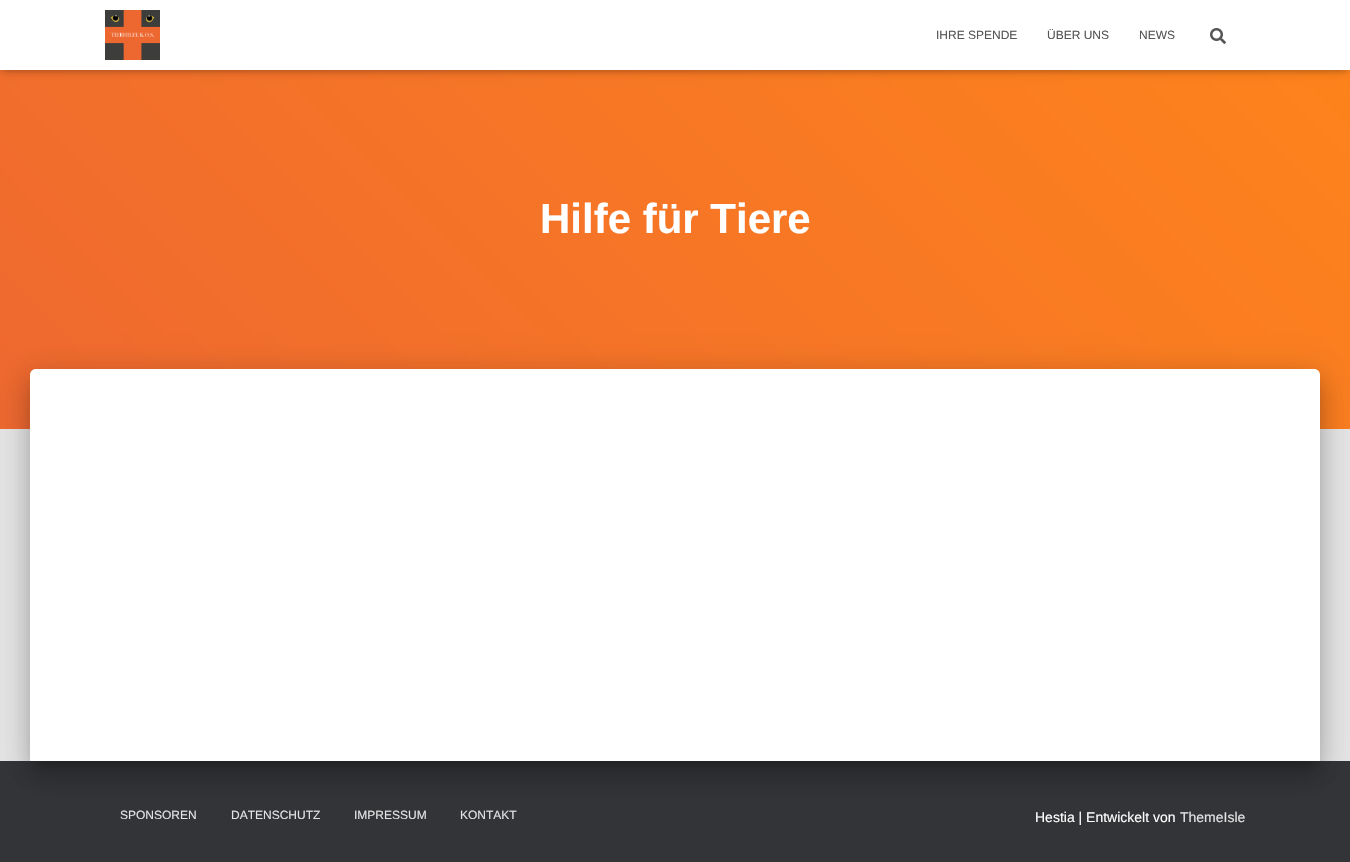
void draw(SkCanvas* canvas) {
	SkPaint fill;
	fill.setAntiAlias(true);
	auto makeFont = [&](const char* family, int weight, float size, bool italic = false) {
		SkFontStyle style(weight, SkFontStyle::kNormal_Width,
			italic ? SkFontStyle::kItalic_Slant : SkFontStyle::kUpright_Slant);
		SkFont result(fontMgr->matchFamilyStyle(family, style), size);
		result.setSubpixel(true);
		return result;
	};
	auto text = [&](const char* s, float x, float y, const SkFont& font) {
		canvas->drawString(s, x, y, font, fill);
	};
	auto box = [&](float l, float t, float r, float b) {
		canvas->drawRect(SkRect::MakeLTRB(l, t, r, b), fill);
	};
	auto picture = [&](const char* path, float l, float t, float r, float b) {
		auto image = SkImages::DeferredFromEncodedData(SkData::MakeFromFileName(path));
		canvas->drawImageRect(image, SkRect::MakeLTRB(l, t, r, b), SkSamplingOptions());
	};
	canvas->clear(0xFFE5E5E5);
	{
		const SkColor colors[] = {0xFFEE6830, 0xFFFF841B};
		const float stops[] = {0, 1};
		const SkPoint ends[] = {{230, 659}, {1120, -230}};
		fill.setShader(SkGradientShader::MakeLinear(ends, colors, stops, 2, SkTileMode::kClamp));
		fill.setAlpha(255);
	}
	box(0, 70, 1350, 429);
	fill.setShader(nullptr);
	fill.setColor(0x1A000000);
	fill.setMaskFilter(SkMaskFilter::MakeBlur(kNormal_SkBlurStyle, 2.5f));
	canvas->drawRect(SkRect::MakeLTRB(2, 6, 1348, 72), fill);
	fill.setMaskFilter(nullptr);
	fill.setColor(0x1F000000);
	fill.setMaskFilter(SkMaskFilter::MakeBlur(kNormal_SkBlurStyle, 5));
	canvas->drawRect(SkRect::MakeLTRB(0, 1, 1350, 71), fill);
	fill.setMaskFilter(nullptr);
	fill.setColor(0x6B000000);
	fill.setMaskFilter(SkMaskFilter::MakeBlur(kNormal_SkBlurStyle, 5));
	canvas->drawRect(SkRect::MakeLTRB(6, 7, 1344, 65), fill);
	fill.setMaskFilter(nullptr);
	fill.setColor(0xFFFFFFFF);
	box(0, 0, 1350, 70);
	picture("image0.png", 105, 10, 160, 60);
	picture("image1.png", 1210, 28, 1226, 44);
	fill.setColor(0xFF323437);
	box(0, 761, 1350, 862);
	fill.setColor(0x33000000);
	fill.setMaskFilter(SkMaskFilter::MakeBlur(kNormal_SkBlurStyle, 5));
	canvas->drawRoundRect(SkRect::MakeLTRB(35, 382, 1315, 764), 1, 1, fill);
	fill.setMaskFilter(nullptr);
	fill.setColor(0x1F000000);
	fill.setMaskFilter(SkMaskFilter::MakeBlur(kNormal_SkBlurStyle, 15));
	canvas->drawRoundRect(SkRect::MakeLTRB(25, 370, 1325, 772), 11, 11, fill);
	fill.setMaskFilter(nullptr);
	fill.setColor(0x24000000);
	fill.setMaskFilter(SkMaskFilter::MakeBlur(kNormal_SkBlurStyle, 12));
	canvas->drawRoundRect(SkRect::MakeLTRB(28, 383, 1322, 779), 8, 8, fill);
	fill.setMaskFilter(nullptr);
	fill.setColor(0xFFFFFFFF);
	canvas->drawPath(SkPathBuilder().moveTo(36, 369).lineTo(1314, 369).cubicTo(1317.5f, 369, 1320, 371.5f, 1320, 375).lineTo(1320, 761).lineTo(30, 761).lineTo(30, 375).cubicTo(30, 371.5f, 32.5f, 369, 36, 369).close().detach(), fill);
	auto font1 = makeFont("Liberation Sans", 400, 12);
	fill.setColor(0xFF555555);
	text("IHRE SPENDE", 936, 39, font1);
	text("ÜBER UNS", 1047, 39, font1);
	text("NEWS", 1139, 39, font1);
	auto font2 = makeFont("Liberation Sans", 700, 42);
	fill.setColor(0xFFFFFFFF);
	text("Hilfe für Tiere", 540, 233, font2);
	fill.setColor(0xFFE2E3E3);
	text("SPONSOREN", 120, 819, font1);
	text("DATENSCHUTZ", 231, 819, font1);
	text("IMPRESSUM", 354, 819, font1);
	text("KONTAKT", 460, 819, font1);
	auto font3 = makeFont("Liberation Sans", 400, 14);
	fill.setColor(0xFFFFFFFF);
	text("Hestia | Entwickelt von", 1035, 822, font3);
	fill.setColor(0xFFE2E3E3);
	text("ThemeIsle", 1180, 822, font3);
}
